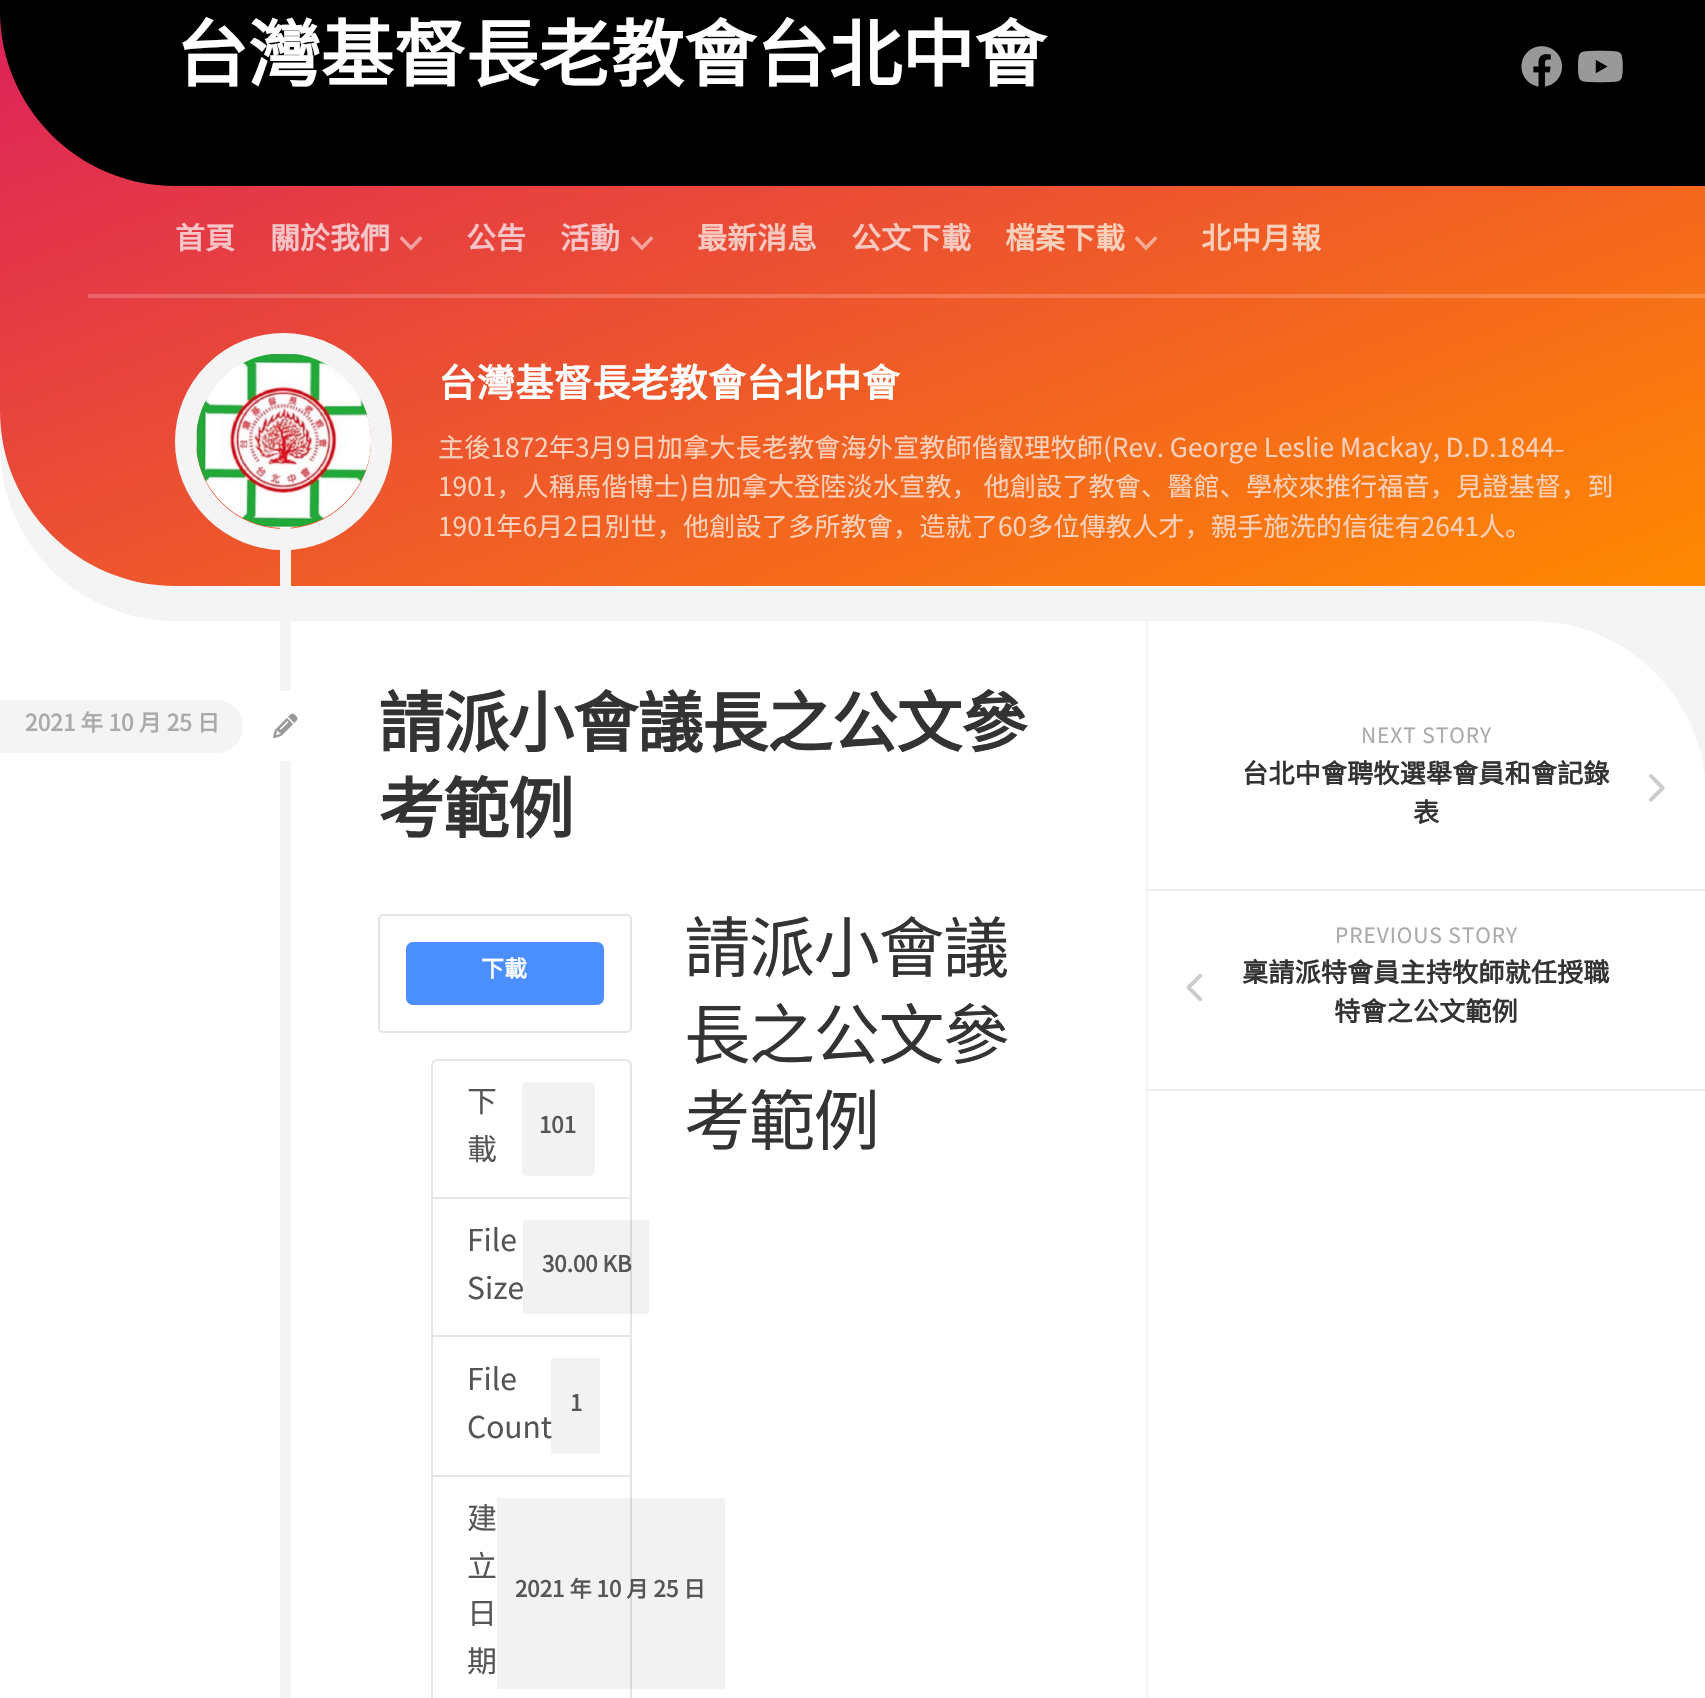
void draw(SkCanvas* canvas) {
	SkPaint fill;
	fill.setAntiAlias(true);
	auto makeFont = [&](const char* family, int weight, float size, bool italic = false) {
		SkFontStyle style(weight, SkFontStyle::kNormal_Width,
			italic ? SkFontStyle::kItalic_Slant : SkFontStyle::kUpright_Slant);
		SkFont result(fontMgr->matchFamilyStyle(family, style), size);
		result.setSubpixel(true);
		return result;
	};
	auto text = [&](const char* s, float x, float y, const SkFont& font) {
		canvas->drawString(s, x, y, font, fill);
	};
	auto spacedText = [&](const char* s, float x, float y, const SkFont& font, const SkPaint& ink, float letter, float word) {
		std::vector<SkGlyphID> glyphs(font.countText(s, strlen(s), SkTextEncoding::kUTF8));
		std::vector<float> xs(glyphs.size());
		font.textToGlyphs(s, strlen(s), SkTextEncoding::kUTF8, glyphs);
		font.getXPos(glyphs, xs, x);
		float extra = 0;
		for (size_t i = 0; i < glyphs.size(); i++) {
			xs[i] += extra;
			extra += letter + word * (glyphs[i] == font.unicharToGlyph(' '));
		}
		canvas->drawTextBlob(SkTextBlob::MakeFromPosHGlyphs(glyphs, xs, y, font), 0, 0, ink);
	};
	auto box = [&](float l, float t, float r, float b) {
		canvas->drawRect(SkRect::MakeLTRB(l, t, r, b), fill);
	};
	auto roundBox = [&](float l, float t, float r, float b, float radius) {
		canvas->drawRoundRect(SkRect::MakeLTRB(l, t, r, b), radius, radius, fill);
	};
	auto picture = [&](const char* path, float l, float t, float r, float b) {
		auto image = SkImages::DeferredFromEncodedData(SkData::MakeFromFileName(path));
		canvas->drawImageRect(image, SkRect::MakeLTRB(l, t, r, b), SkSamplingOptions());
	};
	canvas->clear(0xFFFFFFFF);
	fill.setColor(0xFFF4F4F4);
	canvas->drawPath(SkPathBuilder().moveTo(0, -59).lineTo(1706, -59).lineTo(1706, 621).lineTo(175, 621).cubicTo(78.5f, 621, 0, 542.5f, 0, 446).close().detach(), fill);
	{
		const SkColor colors[] = {0xFFFF8A00, 0xFFDA1B60};
		const float stops[] = {0, 1};
		const SkPoint ends[] = {{1067, 828}, {639, -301}};
		fill.setShader(SkGradientShader::MakeLinear(ends, colors, stops, 2, SkTileMode::kClamp));
		fill.setAlpha(255);
	}
	canvas->drawPath(SkPathBuilder().moveTo(0, -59).lineTo(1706, -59).lineTo(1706, 586).lineTo(175, 586).cubicTo(78.5f, 586, 0, 507.5f, 0, 411).close().detach(), fill);
	{
		const SkColor colors[] = {0xFFFFA133, 0xFFE14980};
		const float stops[] = {0, 1};
		const SkPoint ends[] = {{1067, 828}, {639, -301}};
		fill.setShader(SkGradientShader::MakeLinear(ends, colors, stops, 2, SkTileMode::kClamp));
		fill.setAlpha(255);
	}
	box(88, 294, 1705, 298);
	fill.setShader(nullptr);
	fill.setColor(0xFF000000);
	canvas->drawPath(SkPathBuilder().moveTo(0, -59).lineTo(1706, -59).lineTo(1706, 186).lineTo(175, 186).cubicTo(78.5f, 186, 0, 107.5f, 0, 11).close().detach(), fill);
	picture("image0.png", 1521, 46, 1563, 87);
	picture("image1.png", 1578, 50, 1623, 83);
	fill.setColor(0xFFF3A19F);
	canvas->drawPath(SkPathBuilder(SkPathFillType::kEvenOdd).moveTo(411, 245.5f).lineTo(420, 236).lineTo(422.5f, 238.5f).lineTo(411, 250.5f).lineTo(399.5f, 238.5f).lineTo(402, 236).close().detach(), fill);
	fill.setColor(0xFFF4A49B);
	canvas->drawPath(SkPathBuilder(SkPathFillType::kEvenOdd).moveTo(642, 245.5f).lineTo(651, 236).lineTo(653.5f, 238.5f).lineTo(642, 250.5f).lineTo(630.5f, 238.5f).lineTo(633, 236).close().detach(), fill);
	fill.setColor(0xFFF7AD94);
	canvas->drawPath(SkPathBuilder(SkPathFillType::kEvenOdd).moveTo(1146, 245.5f).lineTo(1155, 236).lineTo(1157.5f, 238.5f).lineTo(1146, 250.5f).lineTo(1134.5f, 238.5f).lineTo(1137, 236).close().detach(), fill);
	fill.setColor(0xFFF4F4F4);
	box(1532, 621, 1705, 778);
	fill.setColor(0xFFFFFFFF);
	canvas->drawPath(SkPathBuilder().moveTo(0, 621).lineTo(1531, 621).cubicTo(1627.5f, 621, 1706, 699.5f, 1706, 796).lineTo(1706, 1698).cubicTo(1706, 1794.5f, 1627.5f, 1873, 1531, 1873).lineTo(0, 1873).close().detach(), fill);
	fill.setColor(0xFFF4F4F4);
	box(280, 527, 291, 1698);
	fill.setStyle(SkPaint::kStroke_Style);
	fill.setStrokeWidth(21);
	canvas->drawCircle(283.5f, 441.5f, 98, fill);
	picture("image2.png", 196, 353, 371, 528);
	fill.setStyle(SkPaint::kFill_Style);
	fill.setColor(0xFFF5F5F5);
	box(1146, 621, 1148, 1698);
	fill.setColor(0xFFF4F4F4);
	canvas->drawPath(SkPathBuilder().moveTo(0, 700).lineTo(216.5f, 700).cubicTo(231, 700, 243, 712, 243, 726.5f).cubicTo(243, 741, 231, 753, 216.5f, 753).lineTo(0, 753).close().detach(), fill);
	fill.setColor(0xFFFFFFFF);
	roundBox(250, 691, 320, 761, 18);
	picture("image3.png", 273, 713, 298, 738);
	fill.setStyle(SkPaint::kStroke_Style);
	fill.setStrokeWidth(2);
	fill.setColor(0xFFE5E5E5);
	canvas->drawRoundRect(SkRect::MakeLTRB(379, 915, 631, 1032), 4, 4, fill);
	fill.setStyle(SkPaint::kFill_Style);
	fill.setColor(0xFF4A8EFF);
	roundBox(406, 942, 604, 1005, 7);
	fill.setStyle(SkPaint::kStroke_Style);
	fill.setColor(0xFFE5E5E5);
	canvas->drawPath(SkPathBuilder().moveTo(438, 1060).lineTo(625, 1060).cubicTo(628.5f, 1060, 631, 1062.5f, 631, 1066).lineTo(631, 1198).lineTo(432, 1198).lineTo(432, 1066).cubicTo(432, 1062.5f, 434.5f, 1060, 438, 1060).close().detach(), fill);
	fill.setStyle(SkPaint::kFill_Style);
	fill.setColor(0xFFF2F2F2);
	roundBox(522, 1082, 595, 1176, 5);
	fill.setStyle(SkPaint::kStroke_Style);
	fill.setColor(0xFFE5E5E5);
	canvas->drawRect(SkRect::MakeLTRB(432, 1198, 631, 1336), fill);
	fill.setStyle(SkPaint::kFill_Style);
	fill.setColor(0x0D000000);
	box(523, 1220, 649, 1314);
	fill.setStyle(SkPaint::kStroke_Style);
	fill.setColor(0xFFE5E5E5);
	canvas->drawRect(SkRect::MakeLTRB(432, 1336, 631, 1476), fill);
	fill.setStyle(SkPaint::kFill_Style);
	fill.setColor(0x0D000000);
	box(551, 1358, 600, 1454);
	fill.setStyle(SkPaint::kStroke_Style);
	fill.setColor(0xFFE5E5E5);
	canvas->drawRect(SkRect::MakeLTRB(432, 1476, 631, 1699), fill);
	fill.setStyle(SkPaint::kFill_Style);
	fill.setColor(0x0D000000);
	box(497, 1498, 725, 1689);
	fill.setColor(0xFFEEEEEE);
	box(1146, 889, 1705, 891);
	picture("image4.png", 1649, 774, 1665, 802);
	box(1146, 1089, 1705, 1091);
	picture("image5.png", 1186, 973, 1203, 1002);
	auto font1 = makeFont("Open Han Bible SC", 700, 73.5f);
	fill.setColor(0xFFFFFFFF);
	spacedText("台灣基督長老教會台北中會", 175, 81, font1, fill, -0.9f, 0);
	auto font2 = makeFont("Open Han Bible SC", 700, 30);
	fill.setColor(0xFFF7C4C7);
	text("首頁", 175, 249, font2);
	text("關於我們", 270, 249, font2);
	text("公告", 466, 249, font2);
	text("活動", 560, 249, font2);
	fill.setColor(0xFFF9CAC2);
	text("最新消息", 697, 249, font2);
	text("公文下載", 851, 249, font2);
	fill.setColor(0xFFFBD1BC);
	text("檔案下載", 1005, 249, font2);
	text("北中月報", 1201, 249, font2);
	auto font3 = makeFont("Open Han Bible SC", 700, 38.5f);
	fill.setColor(0xFFFFFFFF);
	text("台灣基督長老教會台北中會", 438, 397, font3);
	auto font4 = makeFont("Open Han Bible SC", 300, 26.25f);
	fill.setColor(0xFFFBD1BC);
	text("主後1872年3月9日加拿大長老教會海外宣教師偕叡理牧師(Rev. George Leslie Mackay, D.D.1844-", 438, 457, font4);
	text("1901，人稱馬偕博士)自加拿大登陸淡水宣教， 他創設了教會、醫館、學校來推行福音，見證基督，到", 438, 496, font4);
	text("1901年6月2日別世，他創設了多所教會，造就了60多位傳教人才，親手施洗的信徒有2641人。", 438, 536, font4);
	auto font5 = makeFont("Open Han Bible SC", 700, 22.75f);
	fill.setColor(0xFFAAAAAA);
	text("2021 年 10 月 25 日", 25, 731, font5);
	auto font6 = makeFont("Open Han Bible SC", 700, 66.5f);
	fill.setColor(0xFF333333);
	spacedText("請派小會議長之公文參", 378, 747, font6, fill, -1.75f, 0);
	spacedText("考範例", 378, 833, font6, fill, -1.75f, 0);
	auto font7 = makeFont("Open Han Bible SC", 700, 23);
	fill.setColor(0xFFFFFFFF);
	text("下載", 481, 977, font7);
	auto font8 = makeFont("Open Han Bible SC", 300, 30);
	fill.setColor(0xFF555555);
	text("下", 467, 1112, font8);
	auto font9 = makeFont("Open Han Bible SC", 700, 22.25f);
	text("101", 539, 1133, font9);
	text("載", 467, 1160, font8);
	text("File", 467, 1251, font8);
	text("30.00 KB", 542, 1272, font9);
	text("Size", 467, 1299, font8);
	text("File", 467, 1390, font8);
	text("1", 570, 1411, font9);
	text("Count", 467, 1438, font8);
	text("建", 467, 1529, font8);
	text("立", 467, 1577, font8);
	text("2021 年 10 月 25 日", 515, 1597, font9);
	text("日", 467, 1624, font8);
	text("期", 467, 1672, font8);
	auto font10 = makeFont("Open Han Bible SC", 300, 66.5f);
	fill.setColor(0xFF333333);
	spacedText("請派小會議", 684, 972, font10, fill, -1.75f, 0);
	spacedText("長之公文參", 684, 1059, font10, fill, -1.75f, 0);
	spacedText("考範例", 684, 1145, font10, fill, -1.75f, 0);
	auto font11 = makeFont("Open Han Bible SC", 300, 21);
	fill.setColor(0xFFAAAAAA);
	spacedText("NEXT STORY", 1361, 743, font11, fill, 0.9f, 0);
	auto font12 = makeFont("Open Han Bible SC", 700, 26.25f);
	fill.setColor(0xFF333333);
	text("台北中會聘牧選舉會員和會記錄", 1242, 783, font12);
	text("表", 1413, 822, font12);
	fill.setColor(0xFFAAAAAA);
	spacedText("PREVIOUS STORY", 1335, 943, font11, fill, 0.9f, 0);
	fill.setColor(0xFF333333);
	text("稟請派特會員主持牧師就任授職", 1242, 982, font12);
	text("特會之公文範例", 1334, 1021, font12);
}
